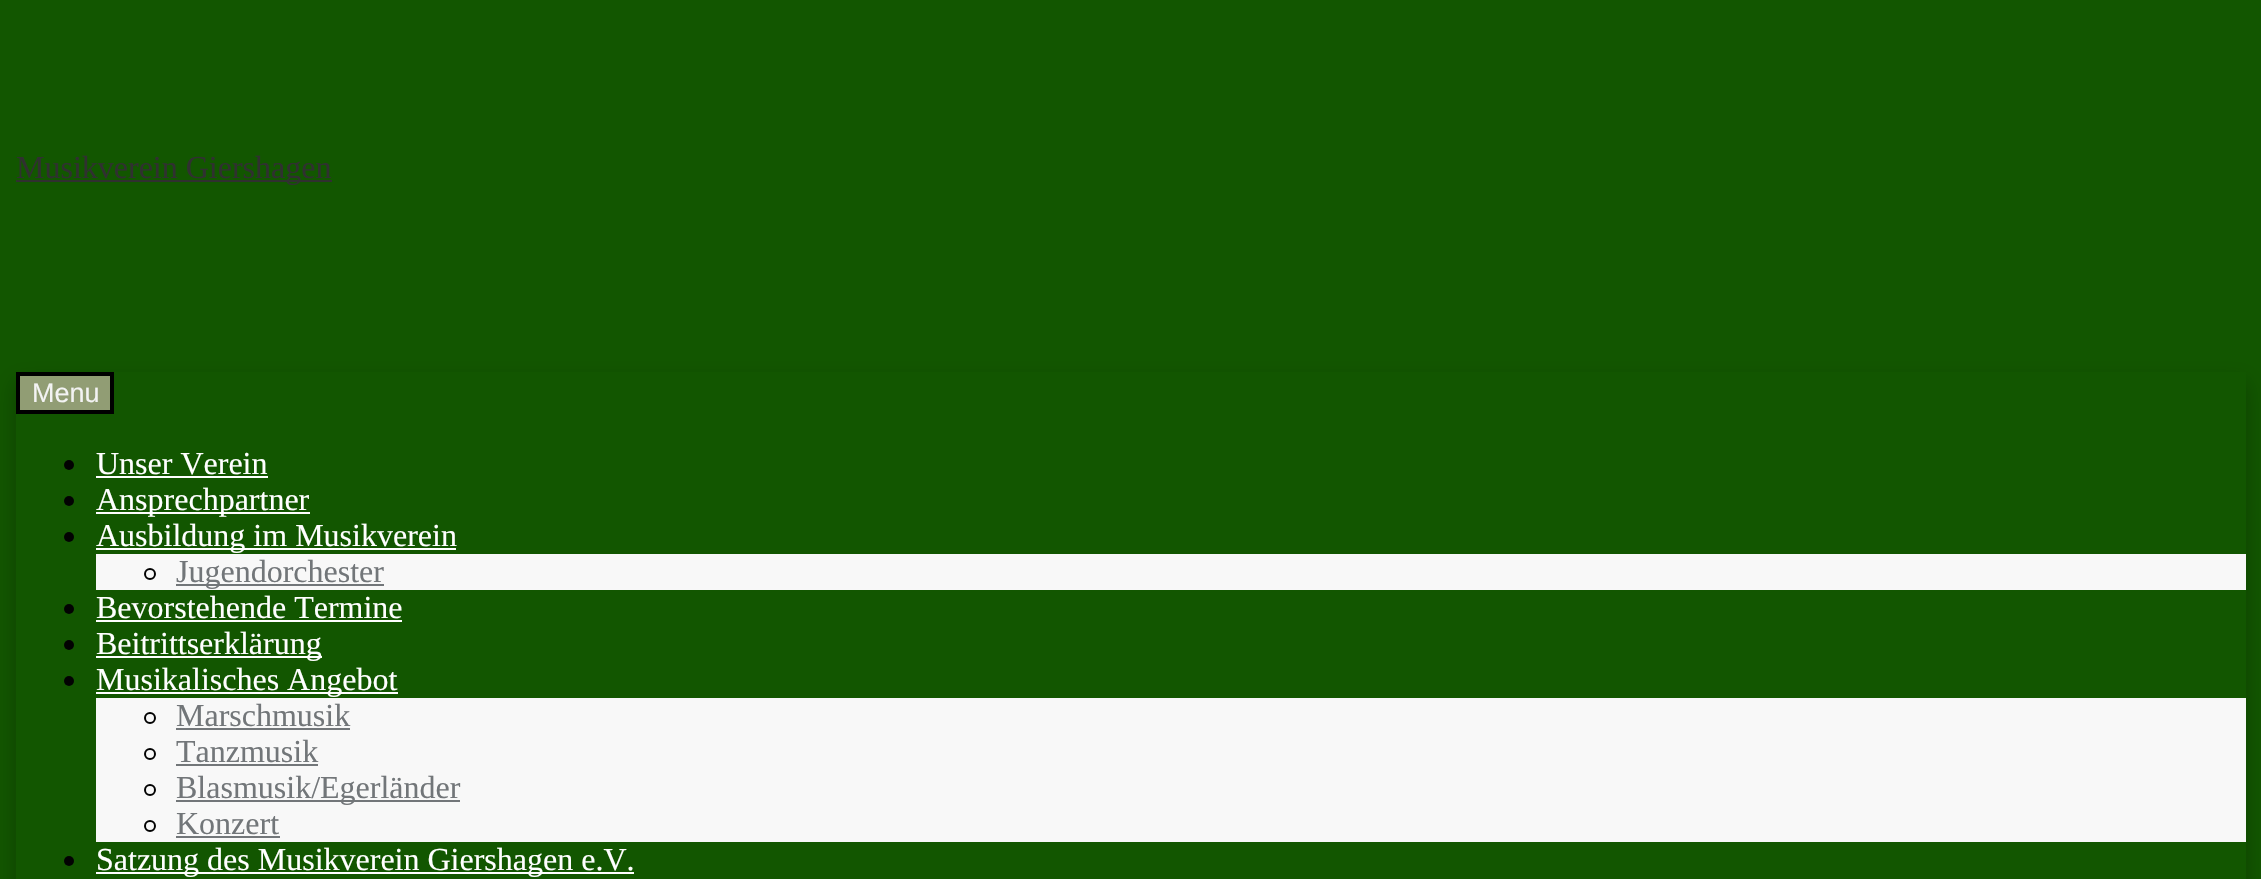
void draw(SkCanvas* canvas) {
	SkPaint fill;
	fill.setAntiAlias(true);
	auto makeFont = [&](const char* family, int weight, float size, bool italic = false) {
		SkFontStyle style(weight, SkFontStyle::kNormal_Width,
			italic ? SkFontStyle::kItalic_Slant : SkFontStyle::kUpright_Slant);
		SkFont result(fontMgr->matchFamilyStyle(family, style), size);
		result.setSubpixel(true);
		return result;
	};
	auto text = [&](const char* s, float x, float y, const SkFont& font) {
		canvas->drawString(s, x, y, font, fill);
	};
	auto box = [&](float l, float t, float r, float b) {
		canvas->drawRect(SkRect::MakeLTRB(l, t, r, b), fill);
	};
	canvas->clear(0xFF125600);
	fill.setColor(0xFF303030);
	box(16, 180, 332, 182);
	canvas->save();
	canvas->clipPath(SkPathBuilder(SkPathFillType::kEvenOdd).moveTo(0, 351).lineTo(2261, 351).lineTo(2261, 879).lineTo(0, 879).close().moveTo(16, 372).lineTo(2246, 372).lineTo(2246, 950).lineTo(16, 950).close().detach(), true);
	fill.setColor(0x40000000);
	fill.setMaskFilter(SkMaskFilter::MakeBlur(kNormal_SkBlurStyle, 10));
	canvas->drawRect(SkRect::MakeLTRB(16, 382, 2246, 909), fill);
	fill.setMaskFilter(nullptr);
	canvas->restore();
	fill.setColor(0xFF919D74);
	canvas->drawRect(SkRect::MakeLTRB(18, 374, 112, 412), fill);
	fill.setStyle(SkPaint::kStroke_Style);
	fill.setStrokeWidth(4);
	fill.setColor(0xFF000000);
	canvas->drawRect(SkRect::MakeLTRB(18, 374, 112, 412), fill);
	fill.setStyle(SkPaint::kFill_Style);
	fill.setColor(0xFF020202);
	canvas->drawCircle(69, 465, 5, fill);
	fill.setColor(0xFFFFFFFF);
	box(96, 476, 268, 478);
	fill.setColor(0xFF020202);
	canvas->drawCircle(69, 501, 5, fill);
	fill.setColor(0xFFFFFFFF);
	box(96, 512, 310, 514);
	fill.setColor(0xFF020202);
	canvas->drawCircle(69, 537, 5, fill);
	fill.setColor(0xFFFFFFFF);
	box(96, 548, 456, 550);
	fill.setColor(0xFFF8F8F8);
	box(96, 554, 2246, 590);
	fill.setStyle(SkPaint::kStroke_Style);
	fill.setStrokeWidth(2);
	fill.setColor(0xFF020202);
	canvas->drawCircle(150, 574, 5, fill);
	fill.setStyle(SkPaint::kFill_Style);
	fill.setColor(0xFF727679);
	box(176, 584, 384, 586);
	fill.setColor(0xFF020202);
	canvas->drawCircle(69, 609, 5, fill);
	fill.setColor(0xFFFFFFFF);
	box(96, 620, 402, 622);
	fill.setColor(0xFF020202);
	canvas->drawCircle(69, 645, 5, fill);
	fill.setColor(0xFFFFFFFF);
	box(96, 656, 322, 658);
	fill.setColor(0xFF020202);
	canvas->drawCircle(69, 681, 5, fill);
	fill.setColor(0xFFFFFFFF);
	box(96, 692, 398, 694);
	fill.setColor(0xFFF8F8F8);
	box(96, 698, 2246, 842);
	fill.setStyle(SkPaint::kStroke_Style);
	fill.setColor(0xFF020202);
	canvas->drawCircle(150, 718, 5, fill);
	fill.setStyle(SkPaint::kFill_Style);
	fill.setColor(0xFF727679);
	box(176, 728, 350, 730);
	fill.setStyle(SkPaint::kStroke_Style);
	fill.setColor(0xFF020202);
	canvas->drawCircle(150, 754, 5, fill);
	fill.setStyle(SkPaint::kFill_Style);
	fill.setColor(0xFF727679);
	box(176, 764, 318, 766);
	fill.setStyle(SkPaint::kStroke_Style);
	fill.setColor(0xFF020202);
	canvas->drawCircle(150, 790, 5, fill);
	fill.setStyle(SkPaint::kFill_Style);
	fill.setColor(0xFF727679);
	box(176, 800, 460, 802);
	fill.setStyle(SkPaint::kStroke_Style);
	fill.setColor(0xFF020202);
	canvas->drawCircle(150, 826, 5, fill);
	fill.setStyle(SkPaint::kFill_Style);
	fill.setColor(0xFF727679);
	box(176, 836, 280, 838);
	fill.setColor(0xFF020202);
	canvas->drawCircle(69, 861, 5, fill);
	fill.setColor(0xFFFFFFFF);
	box(96, 872, 634, 874);
	auto font1 = makeFont("Liberation Serif", 400, 32);
	fill.setColor(0xFF303030);
	text("Musikverein Giershagen", 16, 178, font1);
	auto font2 = makeFont("Liberation Sans", 400, 27);
	fill.setColor(0xFFF3F3F3);
	text("Menu", 32, 402, font2);
	fill.setColor(0xFFFFFFFF);
	text("Unser Verein", 96, 474, font1);
	text("Ansprechpartner", 96, 510, font1);
	text("Ausbildung im Musikverein", 96, 546, font1);
	fill.setColor(0xFF727679);
	text("Jugendorchester", 176, 582, font1);
	fill.setColor(0xFFFFFFFF);
	text("Bevorstehende Termine", 96, 618, font1);
	text("Beitrittserklärung", 96, 654, font1);
	text("Musikalisches Angebot", 96, 690, font1);
	fill.setColor(0xFF727679);
	text("Marschmusik", 176, 726, font1);
	text("Tanzmusik", 176, 762, font1);
	text("Blasmusik/Egerländer", 176, 798, font1);
	text("Konzert", 176, 834, font1);
	fill.setColor(0xFFFFFFFF);
	text("Satzung des Musikverein Giershagen e.V.", 96, 870, font1);
}
